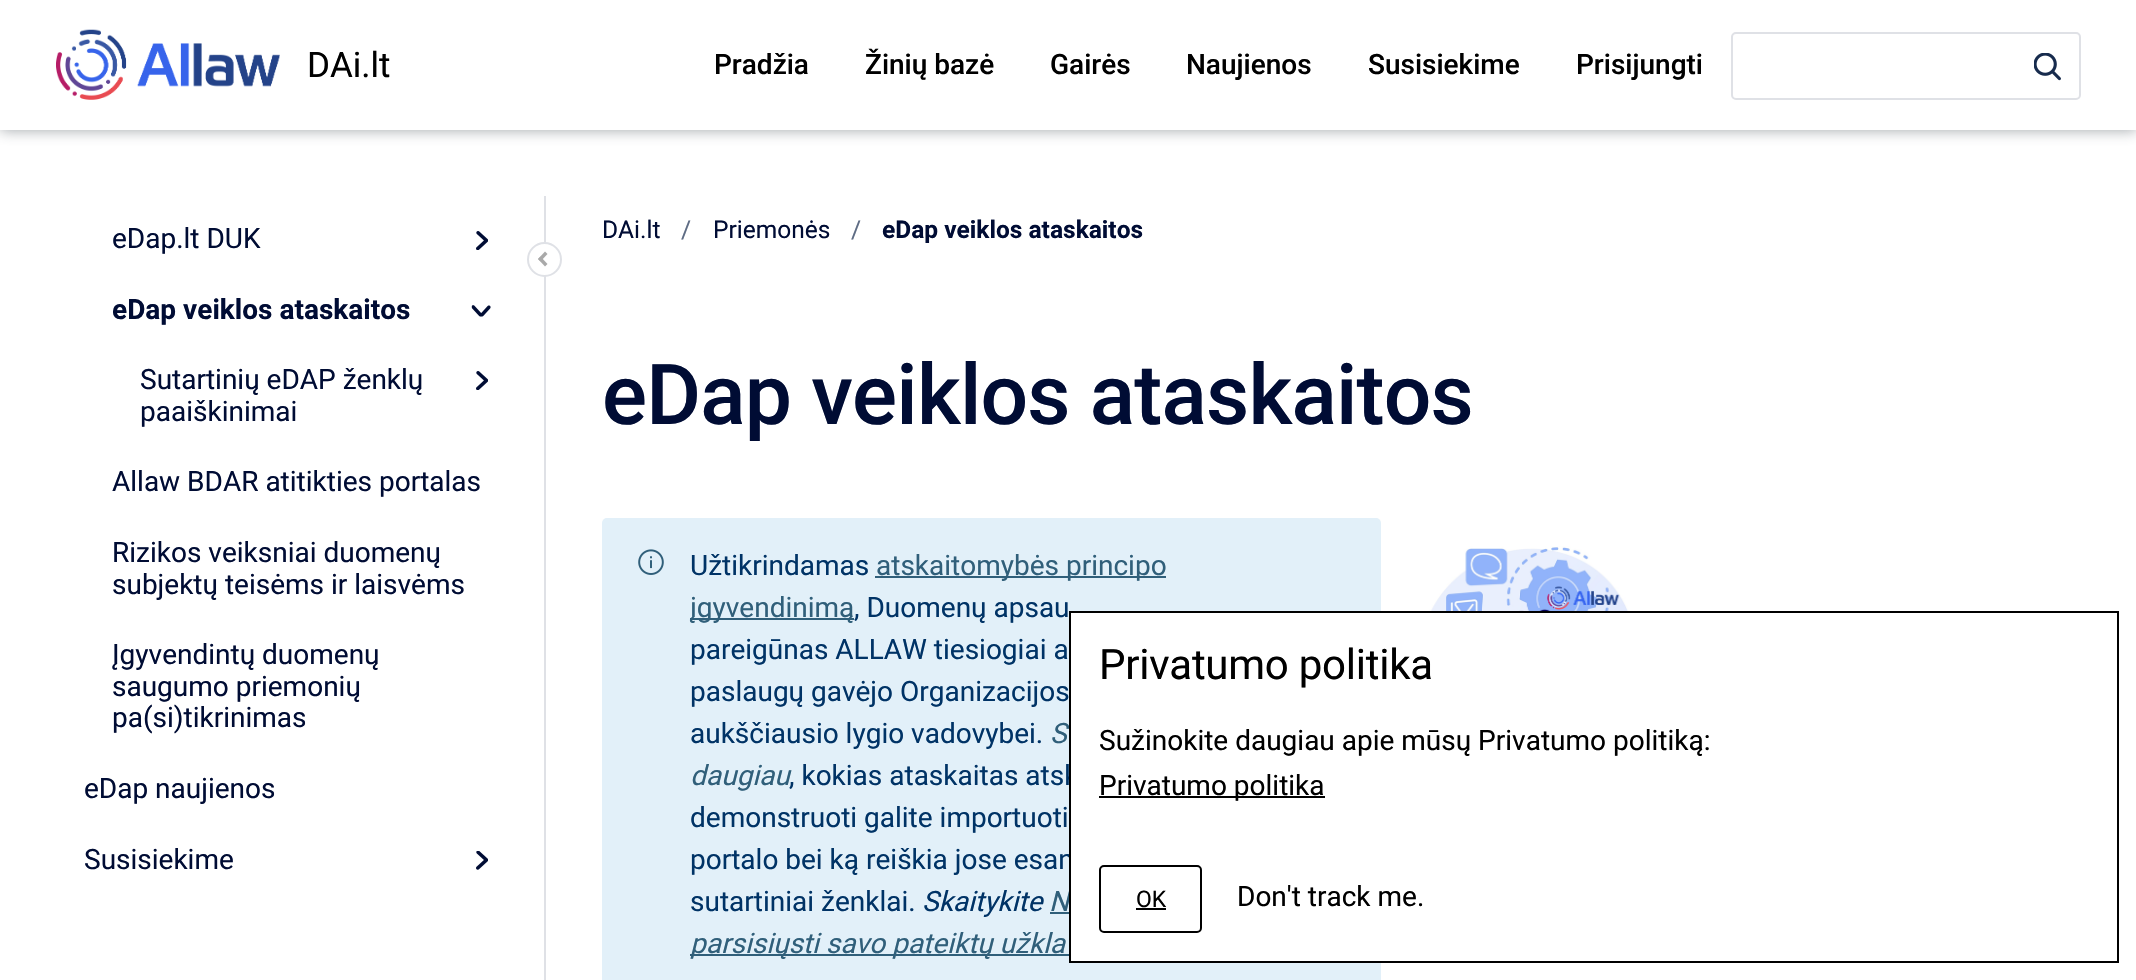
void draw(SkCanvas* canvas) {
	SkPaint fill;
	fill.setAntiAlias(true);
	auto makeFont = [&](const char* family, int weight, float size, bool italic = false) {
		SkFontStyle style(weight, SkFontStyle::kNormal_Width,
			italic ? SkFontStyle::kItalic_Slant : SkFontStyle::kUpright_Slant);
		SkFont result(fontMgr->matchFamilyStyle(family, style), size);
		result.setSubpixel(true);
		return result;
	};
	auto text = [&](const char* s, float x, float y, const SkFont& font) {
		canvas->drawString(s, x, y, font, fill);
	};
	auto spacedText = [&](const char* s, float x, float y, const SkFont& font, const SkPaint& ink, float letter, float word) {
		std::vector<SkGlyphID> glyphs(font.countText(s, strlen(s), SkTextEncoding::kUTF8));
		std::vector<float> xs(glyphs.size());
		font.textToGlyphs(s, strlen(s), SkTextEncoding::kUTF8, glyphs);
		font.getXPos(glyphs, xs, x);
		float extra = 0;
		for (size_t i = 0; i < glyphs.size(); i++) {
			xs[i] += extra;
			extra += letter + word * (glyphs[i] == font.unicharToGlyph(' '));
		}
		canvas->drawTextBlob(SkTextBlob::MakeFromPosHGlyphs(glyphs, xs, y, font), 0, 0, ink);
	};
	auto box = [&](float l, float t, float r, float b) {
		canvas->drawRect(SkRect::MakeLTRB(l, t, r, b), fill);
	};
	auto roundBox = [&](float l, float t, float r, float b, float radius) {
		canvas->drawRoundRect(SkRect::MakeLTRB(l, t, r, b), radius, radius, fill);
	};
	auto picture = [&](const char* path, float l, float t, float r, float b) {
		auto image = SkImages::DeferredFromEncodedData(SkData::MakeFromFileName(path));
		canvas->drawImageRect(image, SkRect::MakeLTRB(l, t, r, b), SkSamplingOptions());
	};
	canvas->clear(0xFFFFFFFF);
	fill.setColor(0x803B484F);
	fill.setMaskFilter(SkMaskFilter::MakeBlur(kNormal_SkBlurStyle, 7));
	canvas->drawRect(SkRect::MakeLTRB(0, 0, 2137, 130), fill);
	fill.setMaskFilter(nullptr);
	fill.setColor(0xFFFFFFFF);
	box(0, 0, 2136, 130);
	picture("image0.png", 56, 29, 280, 100);
	fill.setStyle(SkPaint::kStroke_Style);
	fill.setStrokeWidth(2);
	fill.setColor(0xFFDFE1E6);
	canvas->drawRoundRect(SkRect::MakeLTRB(1732, 33, 2080, 99), 4, 4, fill);
	picture("image1.png", 2034, 53, 2061, 81);
	fill.setStyle(SkPaint::kFill_Style);
	box(544, 196, 546, 980);
	picture("image2.png", 476, 231, 488, 250);
	picture("image3.png", 471, 305, 491, 317);
	picture("image2.png", 476, 371, 488, 390);
	picture("image4.png", 476, 851, 488, 870);
	fill.setColor(0xFFFFFFFF);
	canvas->drawCircle(544.5f, 259.5f, 16.5f, fill);
	fill.setStyle(SkPaint::kStroke_Style);
	fill.setColor(0xFFDFE1E6);
	canvas->drawCircle(544.5f, 259.5f, 16.5f, fill);
	fill.setStyle(SkPaint::kFill_Style);
	fill.setColor(0xFFA9A9A9);
	canvas->drawPath(SkPathBuilder().moveTo(545, 266.5f).lineTo(538, 259).lineTo(540.5f, 256.5f).lineTo(547.5f, 264).close().detach(), fill);
	canvas->drawPath(SkPathBuilder().moveTo(540.5f, 261.5f).lineTo(538, 259).lineTo(545, 251.5f).lineTo(547.5f, 254).close().detach(), fill);
	fill.setColor(0xFFE2F0F9);
	roundBox(602, 518, 1381, 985, 5);
	picture("image5.png", 638, 549, 664, 575);
	fill.setColor(0xFF305F7A);
	box(875, 576, 1166, 578);
	box(690, 618, 854, 620);
	box(1050, 912, 1069, 914);
	box(690, 954, 1069, 956);
	picture("image6.png", 1418, 546, 1636, 611);
	auto font1 = makeFont("Roboto", 400, 35);
	fill.setColor(0xFF000000);
	text("DAi.lt", 307, 77, font1);
	auto font2 = makeFont("Roboto", 500, 28);
	text("Pradžia", 714, 74, font2);
	text("Žinių bazė", 865, 74, font2);
	text("Gairės", 1050, 74, font2);
	text("Naujienos", 1186, 74, font2);
	text("Susisiekime", 1368, 74, font2);
	text("Prisijungti", 1576, 74, font2);
	auto font3 = makeFont("Roboto", 400, 28);
	fill.setColor(0xFF000C34);
	text("eDap.lt DUK", 112, 248, font3);
	auto font4 = makeFont("Roboto", 700, 28);
	text("eDap veiklos ataskaitos", 112, 319, font4);
	text("Sutartinių eDAP ženklų", 140, 389, font3);
	text("paaiškinimai", 140, 421, font3);
	text("Allaw BDAR atitikties portalas", 112, 491, font3);
	text("Rizikos veiksniai duomenų", 112, 562, font3);
	text("subjektų teisėms ir laisvėms", 112, 594, font3);
	text("Įgyvendintų duomenų", 112, 664, font3);
	text("saugumo priemonių", 112, 696, font3);
	text("pa(si)tikrinimas", 112, 727, font3);
	text("eDap naujienos", 84, 798, font3);
	text("Susisiekime", 84, 869, font3);
	auto font5 = makeFont("Roboto", 400, 24.5f);
	text("DAi.lt", 602, 238, font5);
	fill.setColor(0xFF5E6C84);
	text("/", 681, 238, font5);
	fill.setColor(0xFF000C34);
	text("Priemonės", 713, 238, font5);
	fill.setColor(0xFF5E6C84);
	text("/", 851, 238, font5);
	auto font6 = makeFont("Roboto", 700, 24.5f);
	fill.setColor(0xFF000C34);
	text("eDap veiklos ataskaitos", 882, 238, font6);
	auto font7 = makeFont("Roboto", 500, 84);
	spacedText("eDap veiklos ataskaitos", 602, 424, font7, fill, -0.8f, 0);
	fill.setColor(0xFF003366);
	text("Užtikrindamas", 690, 575, font3);
	fill.setColor(0xFF305F7A);
	text("atskaitomybės principo", 876, 575, font3);
	text("įgyvendinimą", 690, 617, font3);
	fill.setColor(0xFF003366);
	text(", Duomenų apsau", 854, 617, font3);
	text("pareigūnas ALLAW tiesiogiai a", 690, 659, font3);
	text("paslaugų gavėjo Organizacijos", 690, 701, font3);
	text("aukščiausio lygio vadovybei.", 690, 743, font3);
	auto font8 = makeFont("Roboto", 400, 28, true);
	fill.setColor(0xFF305F7A);
	text("S", 1050, 743, font8);
	text("daugiau", 690, 785, font8);
	fill.setColor(0xFF003366);
	text(", kokias ataskaitas atsk", 789, 785, font3);
	text("demonstruoti galite importuoti", 690, 827, font3);
	text("portalo bei ką reiškia jose esan", 690, 869, font3);
	text("sutartiniai ženklai.", 690, 911, font3);
	text("Skaitykite", 922, 911, font8);
	fill.setColor(0xFF305F7A);
	text("N", 1049, 911, font8);
	text("parsisiųsti savo pateiktų užkla", 690, 953, font8);
	fill.setColor(0xFFFFFFFF);
	box(1071, 613, 1381, 961);
	fill.setStyle(SkPaint::kStroke_Style);
	fill.setColor(0xFF000000);
	canvas->drawRect(SkRect::MakeLTRB(1070, 612, 2118, 962), fill);
	auto font9 = makeFont("Roboto", 400, 42);
	fill.setStyle(SkPaint::kFill_Style);
	spacedText("Privatumo politika", 1099, 679, font9, fill, -0.25f, 0);
	text("Sužinokite daugiau apie mūsų Privatumo politiką:", 1099, 750, font3);
	box(1099, 796, 1325, 798);
	text("Privatumo politika", 1099, 795, font3);
	fill.setStyle(SkPaint::kStroke_Style);
	canvas->drawRoundRect(SkRect::MakeLTRB(1100, 866, 1201, 932), 4, 4, fill);
	auto font10 = makeFont("Roboto", 400, 23);
	fill.setStyle(SkPaint::kFill_Style);
	text("OK", 1136, 907, font10);
	box(1136, 908, 1166, 910);
	text("Don't track me.", 1237, 906, font3);
}
